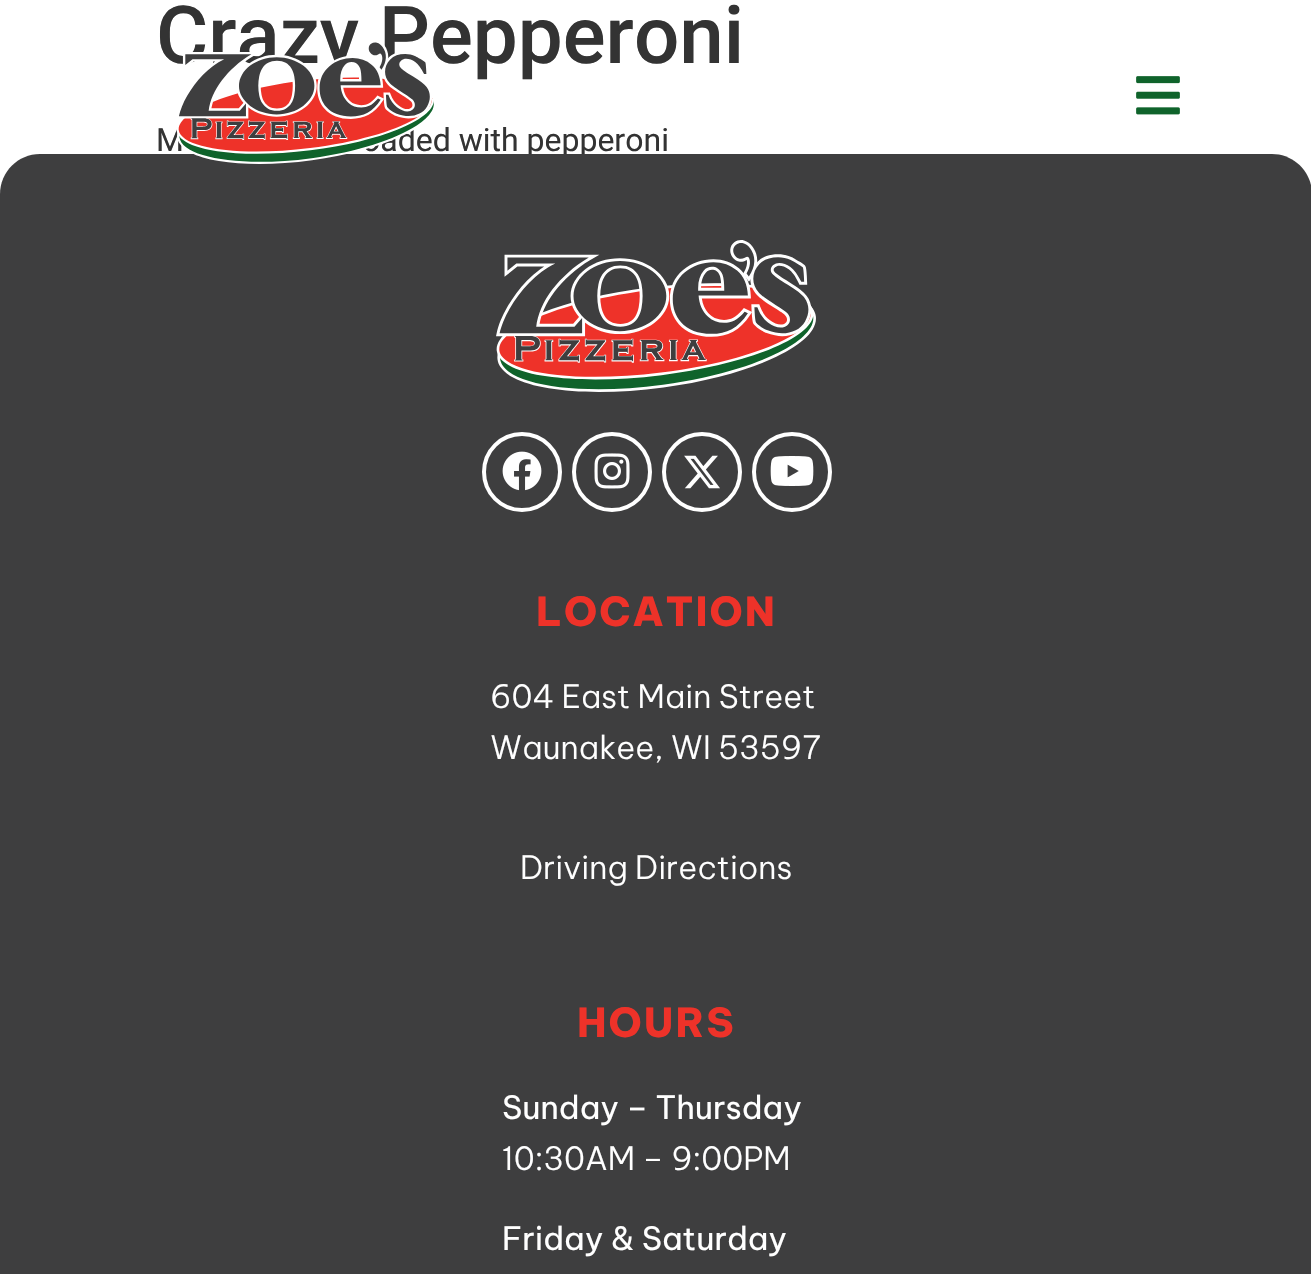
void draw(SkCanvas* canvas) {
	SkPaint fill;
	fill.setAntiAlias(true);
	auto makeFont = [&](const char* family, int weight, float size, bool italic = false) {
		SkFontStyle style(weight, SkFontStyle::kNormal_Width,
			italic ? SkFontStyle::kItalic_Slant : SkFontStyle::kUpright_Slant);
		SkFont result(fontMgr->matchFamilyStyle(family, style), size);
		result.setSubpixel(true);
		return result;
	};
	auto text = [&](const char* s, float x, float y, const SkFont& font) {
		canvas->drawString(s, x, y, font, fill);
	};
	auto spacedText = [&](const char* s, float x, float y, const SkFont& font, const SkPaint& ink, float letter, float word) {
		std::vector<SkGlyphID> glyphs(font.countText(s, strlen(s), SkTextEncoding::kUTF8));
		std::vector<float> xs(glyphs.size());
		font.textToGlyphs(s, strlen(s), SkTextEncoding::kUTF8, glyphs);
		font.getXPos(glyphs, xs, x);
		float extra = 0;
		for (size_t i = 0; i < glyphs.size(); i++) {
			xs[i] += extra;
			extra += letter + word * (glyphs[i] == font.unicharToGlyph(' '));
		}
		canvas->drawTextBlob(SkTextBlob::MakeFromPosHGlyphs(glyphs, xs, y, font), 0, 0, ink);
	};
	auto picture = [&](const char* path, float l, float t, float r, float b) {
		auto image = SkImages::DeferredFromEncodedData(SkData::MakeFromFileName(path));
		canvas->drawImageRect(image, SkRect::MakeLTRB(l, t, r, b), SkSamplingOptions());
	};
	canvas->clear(0xFFFFFFFF);
	picture("image1.png", 1136, 76, 1180, 115);
	auto font1 = makeFont("Roboto", 500, 80);
	fill.setColor(0xFF333333);
	text("Crazy Pepperoni", 156, 63, font1);
	auto font2 = makeFont("Roboto", 400, 32);
	text("M", 156, 151, font2);
	text("oaded with pepperoni", 362, 151, font2);
	fill.setColor(0xFF3E3E3F);
	canvas->drawPath(SkPathBuilder().moveTo(40, 154).lineTo(1272, 154).cubicTo(1294, 154, 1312, 172, 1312, 194).lineTo(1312, 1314).lineTo(0, 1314).lineTo(0, 194).cubicTo(0, 172, 18, 154, 40, 154).close().detach(), fill);
	picture("image0.png", 176, 42, 434, 164);
	picture("image2.png", 496, 240, 816, 392);
	fill.setStyle(SkPaint::kStroke_Style);
	fill.setStrokeWidth(4);
	fill.setColor(0xFFFFFFFF);
	canvas->drawCircle(522, 472, 38, fill);
	picture("image3.png", 502, 451, 542, 491);
	canvas->drawCircle(612, 472, 38, fill);
	picture("image4.png", 594, 453, 630, 489);
	canvas->drawCircle(702, 472, 38, fill);
	picture("image5.png", 684, 455, 720, 489);
	canvas->drawCircle(792, 472, 38, fill);
	picture("image6.png", 770, 456, 814, 486);
	auto font3 = makeFont("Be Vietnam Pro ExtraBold", 800, 40);
	fill.setStyle(SkPaint::kFill_Style);
	fill.setColor(0xFFEE3229);
	spacedText("LOCATION", 536, 626, font3, fill, 2, 0);
	auto font4 = makeFont("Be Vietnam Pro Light", 300, 32);
	fill.setColor(0xFFFFFFFF);
	text("604 East Main Street", 490, 708, font4);
	text("Waunakee, WI 53597", 490, 759, font4);
	text("Driving Directions", 520, 879, font4);
	fill.setColor(0xFFEE3229);
	spacedText("HOURS", 577, 1037, font3, fill, 2, 0);
	auto font5 = makeFont("Be Vietnam Pro", 400, 32);
	fill.setColor(0xFFFFFFFF);
	text("Sunday – Thursday", 502, 1119, font5);
	text("10:30AM – 9:00PM", 502, 1170, font4);
	text("Friday & Saturday", 502, 1250, font5);
}
